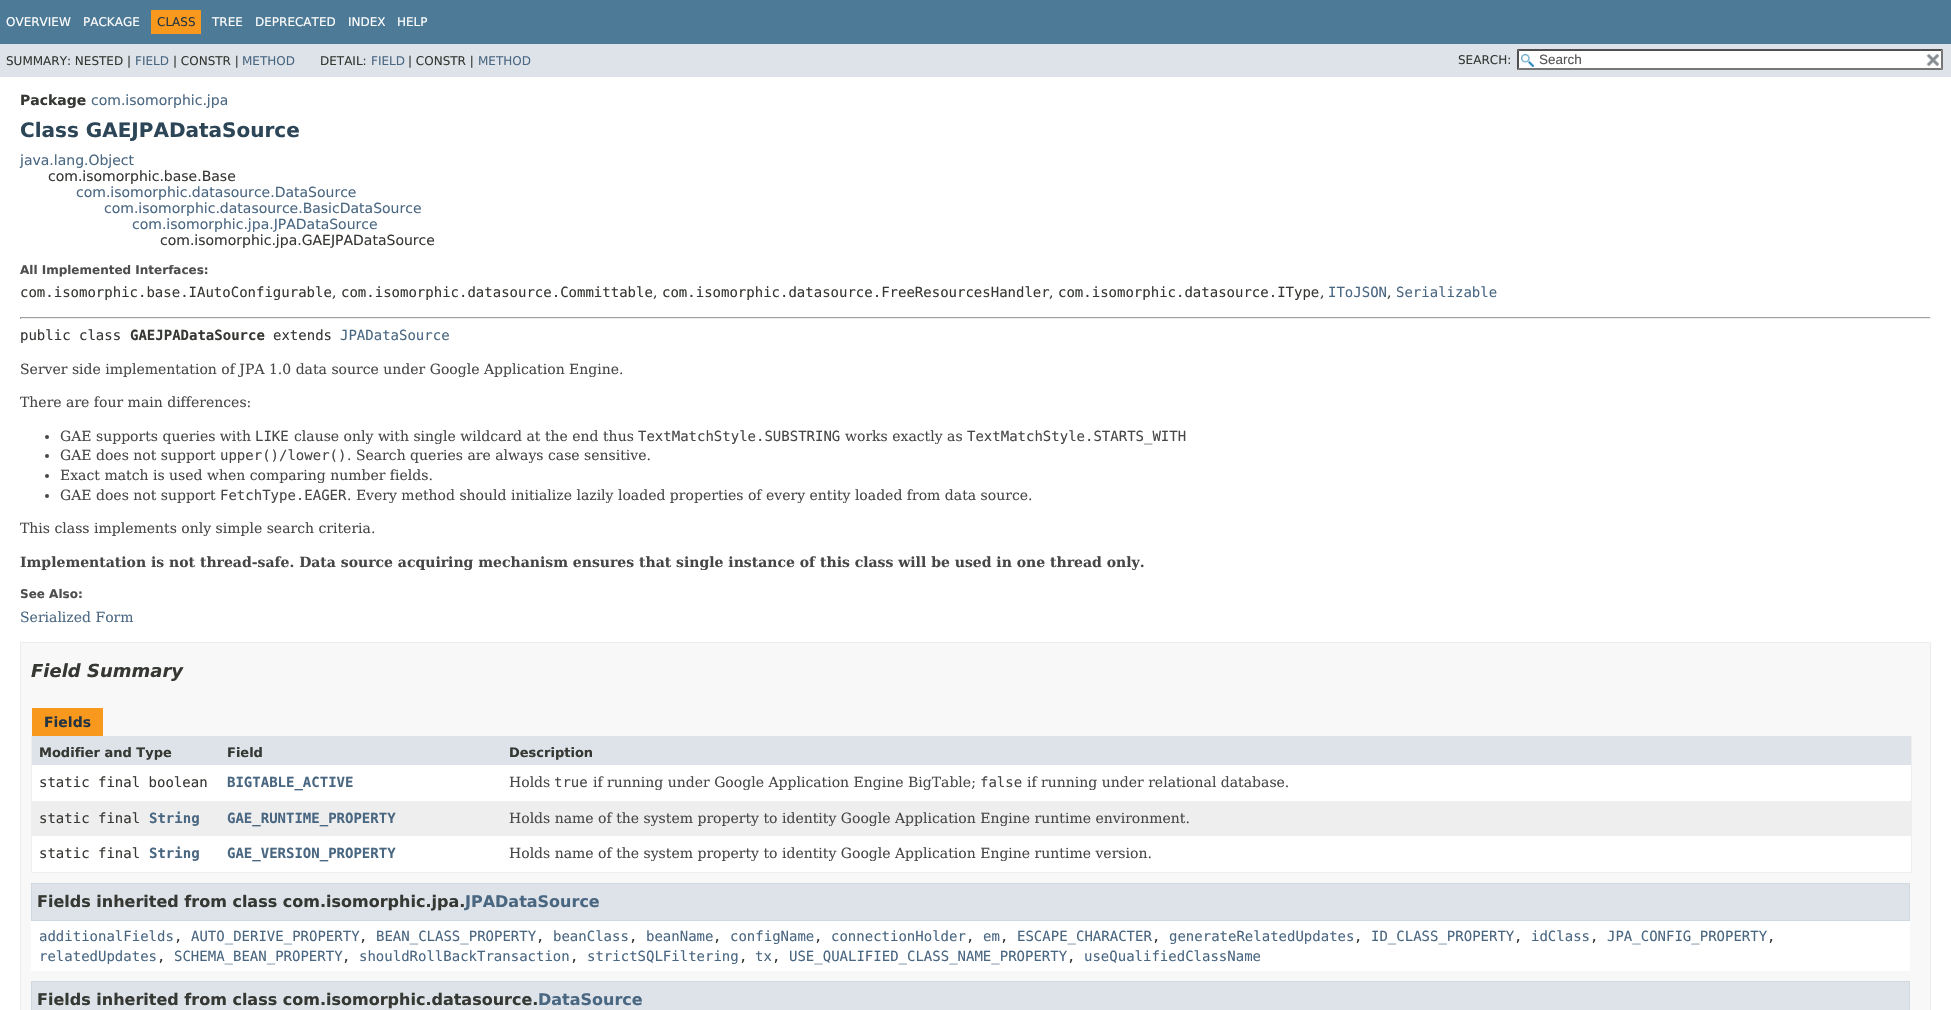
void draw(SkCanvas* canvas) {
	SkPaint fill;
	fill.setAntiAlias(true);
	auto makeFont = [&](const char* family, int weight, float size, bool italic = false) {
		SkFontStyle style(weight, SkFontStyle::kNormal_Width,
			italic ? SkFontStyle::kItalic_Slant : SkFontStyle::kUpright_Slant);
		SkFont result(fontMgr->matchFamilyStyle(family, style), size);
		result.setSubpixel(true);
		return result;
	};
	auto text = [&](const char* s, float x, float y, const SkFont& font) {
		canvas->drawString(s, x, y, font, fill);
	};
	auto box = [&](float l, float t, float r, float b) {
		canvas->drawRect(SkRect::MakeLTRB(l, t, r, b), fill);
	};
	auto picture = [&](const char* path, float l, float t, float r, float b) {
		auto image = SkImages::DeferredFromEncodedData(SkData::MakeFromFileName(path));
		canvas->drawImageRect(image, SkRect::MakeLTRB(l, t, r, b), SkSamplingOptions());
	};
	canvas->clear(0xFFFFFFFF);
	fill.setColor(0xFF4D7A97);
	box(0, 0, 1951, 44);
	fill.setColor(0xFFF8981D);
	box(151, 10, 201, 34);
	fill.setColor(0xFFDEE3E9);
	box(0, 44, 1951, 77);
	fill.setColor(0xFFFFFFFF);
	box(1517, 49, 1943, 70);
	picture("image0.png", 1521, 54, 1534, 67);
	fill.setColor(0xFF4F4F4F);
	canvas->drawPath(SkPathBuilder().moveTo(1517, 49).lineTo(1943, 49).lineTo(1941, 51).lineTo(1519, 51).close().detach(), fill);
	fill.setColor(0xFF767676);
	canvas->drawPath(SkPathBuilder().moveTo(1943, 49).lineTo(1943, 70).lineTo(1941, 68).lineTo(1941, 51).close().detach(), fill);
	canvas->drawPath(SkPathBuilder().moveTo(1943, 70).lineTo(1517, 70).lineTo(1519, 68).lineTo(1941, 68).close().detach(), fill);
	fill.setColor(0xFF4F4F4F);
	canvas->drawPath(SkPathBuilder().moveTo(1517, 70).lineTo(1517, 49).lineTo(1519, 51).lineTo(1519, 68).close().detach(), fill);
	picture("image1.png", 1926, 54, 1940, 66);
	fill.setColor(0xFF9F9F9F);
	box(20, 317, 1931, 318);
	fill.setColor(0xFFEEEEEE);
	box(1930, 317, 1931, 319);
	box(20, 318, 1931, 319);
	fill.setColor(0xFF9F9F9F);
	box(20, 317, 21, 319);
	fill.setColor(0xFF474747);
	canvas->drawCircle(47, 437, 2, fill);
	canvas->drawCircle(47, 456, 2, fill);
	canvas->drawCircle(47, 476, 2, fill);
	canvas->drawCircle(47, 496, 2, fill);
	fill.setColor(0xFFF8F8F8);
	canvas->drawRect(SkRect::MakeLTRB(20.5f, 642.5f, 1930.5f, 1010.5f), fill);
	fill.setStyle(SkPaint::kStroke_Style);
	fill.setStrokeWidth(1);
	fill.setColor(0xFFEDEDED);
	canvas->drawRect(SkRect::MakeLTRB(20.5f, 642.5f, 1930.5f, 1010.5f), fill);
	fill.setStyle(SkPaint::kFill_Style);
	fill.setColor(0xFFF8981D);
	box(32, 708, 103, 736);
	fill.setColor(0xFFEEEEEE);
	box(1911, 736, 1912, 873);
	box(31, 872, 1912, 873);
	box(31, 736, 32, 873);
	fill.setColor(0xFFDEE3E9);
	box(32, 736, 502, 765);
	box(502, 736, 1911, 765);
	fill.setColor(0xFFFFFFFF);
	box(32, 765, 502, 801);
	box(502, 765, 1911, 801);
	fill.setColor(0xFFEEEEEF);
	box(32, 801, 502, 836);
	box(502, 801, 1911, 836);
	fill.setColor(0xFFFFFFFF);
	box(32, 836, 502, 872);
	box(502, 836, 1911, 872);
	box(31, 921, 1910, 971);
	fill.setColor(0xFFDEE3E9);
	canvas->drawRect(SkRect::MakeLTRB(31.5f, 883.5f, 1909.5f, 920.5f), fill);
	fill.setStyle(SkPaint::kStroke_Style);
	fill.setColor(0xFFD0D9E0);
	canvas->drawRect(SkRect::MakeLTRB(31.5f, 883.5f, 1909.5f, 920.5f), fill);
	fill.setStyle(SkPaint::kFill_Style);
	fill.setColor(0xFFDEE3E9);
	canvas->drawRect(SkRect::MakeLTRB(31.5f, 981.5f, 1909.5f, 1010.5f), fill);
	fill.setStyle(SkPaint::kStroke_Style);
	fill.setColor(0xFFD0D9E0);
	canvas->drawRect(SkRect::MakeLTRB(31.5f, 981.5f, 1909.5f, 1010.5f), fill);
	auto font1 = makeFont("DejaVu Sans", 400, 12);
	fill.setStyle(SkPaint::kFill_Style);
	fill.setColor(0xFFFFFFFF);
	text("OVERVIEW", 6, 26, font1);
	text("PACKAGE", 83, 26, font1);
	fill.setColor(0xFF253441);
	text("CLASS", 157, 26, font1);
	fill.setColor(0xFFFFFFFF);
	text("TREE", 212, 26, font1);
	text("DEPRECATED", 255, 26, font1);
	text("INDEX", 348, 26, font1);
	text("HELP", 397, 26, font1);
	fill.setColor(0xFF353833);
	text("SUMMARY: NESTED |", 6, 65, font1);
	fill.setColor(0xFF4A6782);
	text("FIELD", 135, 65, font1);
	fill.setColor(0xFF353833);
	text("| CONSTR |", 173, 65, font1);
	fill.setColor(0xFF4A6782);
	text("METHOD", 242, 65, font1);
	fill.setColor(0xFF353833);
	text("DETAIL:", 320, 65, font1);
	fill.setColor(0xFF4A6782);
	text("FIELD", 371, 65, font1);
	fill.setColor(0xFF353833);
	text("| CONSTR |", 408, 65, font1);
	fill.setColor(0xFF4A6782);
	text("METHOD", 478, 65, font1);
	fill.setColor(0xFF353833);
	text("SEARCH:", 1458, 64, font1);
	auto font2 = makeFont("Liberation Sans", 400, 13.5f);
	fill.setColor(0xFF545454);
	text("Search", 1539, 64, font2);
	auto font3 = makeFont("DejaVu Sans", 700, 14);
	fill.setColor(0xFF353833);
	text("Package", 20, 105, font3);
	auto font4 = makeFont("DejaVu Sans", 400, 14);
	fill.setColor(0xFF4A6782);
	text("com.isomorphic.jpa", 91, 105, font4);
	auto font5 = makeFont("DejaVu Sans", 700, 20);
	fill.setColor(0xFF2C4557);
	text("Class GAEJPADataSource", 20, 137, font5);
	fill.setColor(0xFF4A6782);
	text("java.lang.Object", 20, 165, font4);
	fill.setColor(0xFF353833);
	text("com.isomorphic.base.Base", 48, 181, font4);
	fill.setColor(0xFF4A6782);
	text("com.isomorphic.datasource.DataSource", 76, 197, font4);
	text("com.isomorphic.datasource.BasicDataSource", 104, 213, font4);
	text("com.isomorphic.jpa.JPADataSource", 132, 229, font4);
	fill.setColor(0xFF353833);
	text("com.isomorphic.jpa.GAEJPADataSource", 160, 245, font4);
	auto font6 = makeFont("DejaVu Sans", 700, 12);
	fill.setColor(0xFF4E4E4E);
	text("All Implemented Interfaces:", 20, 274, font6);
	auto font7 = makeFont("DejaVu Sans Mono", 400, 14);
	fill.setColor(0xFF353833);
	text("com.isomorphic.base.IAutoConfigurable", 20, 297, font7);
	auto font8 = makeFont("DejaVu Serif", 400, 14);
	text(",", 332, 297, font8);
	text("com.isomorphic.datasource.Committable", 341, 297, font7);
	text(",", 653, 297, font8);
	text("com.isomorphic.datasource.FreeResourcesHandler", 662, 297, font7);
	text(",", 1049, 297, font8);
	text("com.isomorphic.datasource.IType", 1058, 297, font7);
	text(",", 1320, 297, font8);
	fill.setColor(0xFF4A6782);
	text("IToJSON", 1328, 297, font7);
	fill.setColor(0xFF353833);
	text(",", 1387, 297, font8);
	fill.setColor(0xFF4A6782);
	text("Serializable", 1396, 297, font7);
	fill.setColor(0xFF353833);
	text("public class", 20, 340, font7);
	auto font9 = makeFont("DejaVu Sans Mono", 700, 14);
	text("GAEJPADataSource", 130, 340, font9);
	text("extends", 273, 340, font7);
	fill.setColor(0xFF4A6782);
	text("JPADataSource", 340, 340, font7);
	fill.setColor(0xFF474747);
	text("Server side implementation of JPA 1.0 data source under Google Application Engine.", 20, 374, font8);
	text("There are four main differences:", 20, 407, font8);
	text("GAE supports queries with", 60, 441, font8);
	text("LIKE", 255, 441, font7);
	text("clause only with single wildcard at the end thus", 294, 441, font8);
	text("TextMatchStyle.SUBSTRING", 638, 441, font7);
	text("works exactly as", 845, 441, font8);
	text("TextMatchStyle.STARTS_WITH", 967, 441, font7);
	text("GAE does not support", 60, 460, font8);
	text("upper()/lower()", 220, 460, font7);
	text(". Search queries are always case sensitive.", 347, 460, font8);
	text("Exact match is used when comparing number fields.", 60, 480, font8);
	text("GAE does not support", 60, 500, font8);
	text("FetchType.EAGER", 220, 500, font7);
	text(". Every method should initialize lazily loaded properties of every entity loaded from data source.", 347, 500, font8);
	text("This class implements only simple search criteria.", 20, 533, font8);
	auto font10 = makeFont("DejaVu Serif", 700, 14);
	text("Implementation is not thread-safe. Data source acquiring mechanism ensures that single instance of this class will be used in one thread only.", 20, 567, font10);
	fill.setColor(0xFF4E4E4E);
	text("See Also:", 20, 598, font6);
	fill.setColor(0xFF4A6782);
	text("Serialized Form", 20, 622, font8);
	auto font11 = makeFont("DejaVu Sans", 700, 18, true);
	fill.setColor(0xFF353833);
	text("Field Summary", 31, 677, font11);
	fill.setColor(0xFF253441);
	text("Fields", 44, 727, font3);
	auto font12 = makeFont("DejaVu Sans", 700, 13);
	fill.setColor(0xFF353833);
	text("Modifier and Type", 39, 757, font12);
	text("Field", 227, 757, font12);
	text("Description", 509, 757, font12);
	text("static final boolean", 39, 787, font7);
	fill.setColor(0xFF4A6782);
	text("BIGTABLE_ACTIVE", 227, 787, font9);
	fill.setColor(0xFF474747);
	text("Holds", 509, 787, font8);
	text("true", 554, 787, font7);
	text("if running under Google Application Engine BigTable;", 593, 787, font8);
	text("false", 980, 787, font7);
	text("if running under relational database.", 1027, 787, font8);
	fill.setColor(0xFF353833);
	text("static final", 39, 823, font7);
	fill.setColor(0xFF4A6782);
	text("String", 149, 823, font9);
	text("GAE_RUNTIME_PROPERTY", 227, 823, font9);
	fill.setColor(0xFF474747);
	text("Holds name of the system property to identity Google Application Engine runtime environment.", 509, 823, font8);
	fill.setColor(0xFF353833);
	text("static final", 39, 858, font7);
	fill.setColor(0xFF4A6782);
	text("String", 149, 858, font9);
	text("GAE_VERSION_PROPERTY", 227, 858, font9);
	fill.setColor(0xFF474747);
	text("Holds name of the system property to identity Google Application Engine runtime version.", 509, 858, font8);
	auto font13 = makeFont("DejaVu Sans", 700, 16);
	fill.setColor(0xFF353833);
	text("Fields inherited from class com.isomorphic.jpa.", 37, 907, font13);
	fill.setColor(0xFF4A6782);
	text("JPADataSource", 465, 907, font13);
	text("additionalFields", 39, 941, font7);
	fill.setColor(0xFF353833);
	text(",", 174, 941, font7);
	fill.setColor(0xFF4A6782);
	text("AUTO_DERIVE_PROPERTY", 191, 941, font7);
	fill.setColor(0xFF353833);
	text(",", 359, 941, font7);
	fill.setColor(0xFF4A6782);
	text("BEAN_CLASS_PROPERTY", 376, 941, font7);
	fill.setColor(0xFF353833);
	text(",", 536, 941, font7);
	fill.setColor(0xFF4A6782);
	text("beanClass", 553, 941, font7);
	fill.setColor(0xFF353833);
	text(",", 629, 941, font7);
	fill.setColor(0xFF4A6782);
	text("beanName", 646, 941, font7);
	fill.setColor(0xFF353833);
	text(",", 713, 941, font7);
	fill.setColor(0xFF4A6782);
	text("configName", 730, 941, font7);
	fill.setColor(0xFF353833);
	text(",", 814, 941, font7);
	fill.setColor(0xFF4A6782);
	text("connectionHolder", 831, 941, font7);
	fill.setColor(0xFF353833);
	text(",", 966, 941, font7);
	fill.setColor(0xFF4A6782);
	text("em", 983, 941, font7);
	fill.setColor(0xFF353833);
	text(",", 1000, 941, font7);
	fill.setColor(0xFF4A6782);
	text("ESCAPE_CHARACTER", 1017, 941, font7);
	fill.setColor(0xFF353833);
	text(",", 1152, 941, font7);
	fill.setColor(0xFF4A6782);
	text("generateRelatedUpdates", 1169, 941, font7);
	fill.setColor(0xFF353833);
	text(",", 1354, 941, font7);
	fill.setColor(0xFF4A6782);
	text("ID_CLASS_PROPERTY", 1371, 941, font7);
	fill.setColor(0xFF353833);
	text(",", 1514, 941, font7);
	fill.setColor(0xFF4A6782);
	text("idClass", 1531, 941, font7);
	fill.setColor(0xFF353833);
	text(",", 1590, 941, font7);
	fill.setColor(0xFF4A6782);
	text("JPA_CONFIG_PROPERTY", 1607, 941, font7);
	fill.setColor(0xFF353833);
	text(",", 1767, 941, font7);
	fill.setColor(0xFF4A6782);
	text("relatedUpdates", 39, 961, font7);
	fill.setColor(0xFF353833);
	text(",", 157, 961, font7);
	fill.setColor(0xFF4A6782);
	text("SCHEMA_BEAN_PROPERTY", 174, 961, font7);
	fill.setColor(0xFF353833);
	text(",", 342, 961, font7);
	fill.setColor(0xFF4A6782);
	text("shouldRollBackTransaction", 359, 961, font7);
	fill.setColor(0xFF353833);
	text(",", 570, 961, font7);
	fill.setColor(0xFF4A6782);
	text("strictSQLFiltering", 587, 961, font7);
	fill.setColor(0xFF353833);
	text(",", 739, 961, font7);
	fill.setColor(0xFF4A6782);
	text("tx", 755, 961, font7);
	fill.setColor(0xFF353833);
	text(",", 772, 961, font7);
	fill.setColor(0xFF4A6782);
	text("USE_QUALIFIED_CLASS_NAME_PROPERTY", 789, 961, font7);
	fill.setColor(0xFF353833);
	text(",", 1067, 961, font7);
	fill.setColor(0xFF4A6782);
	text("useQualifiedClassName", 1084, 961, font7);
	fill.setColor(0xFF353833);
	text("Fields inherited from class com.isomorphic.datasource.", 37, 1005, font13);
	fill.setColor(0xFF4A6782);
	text("DataSource", 538, 1005, font13);
}
